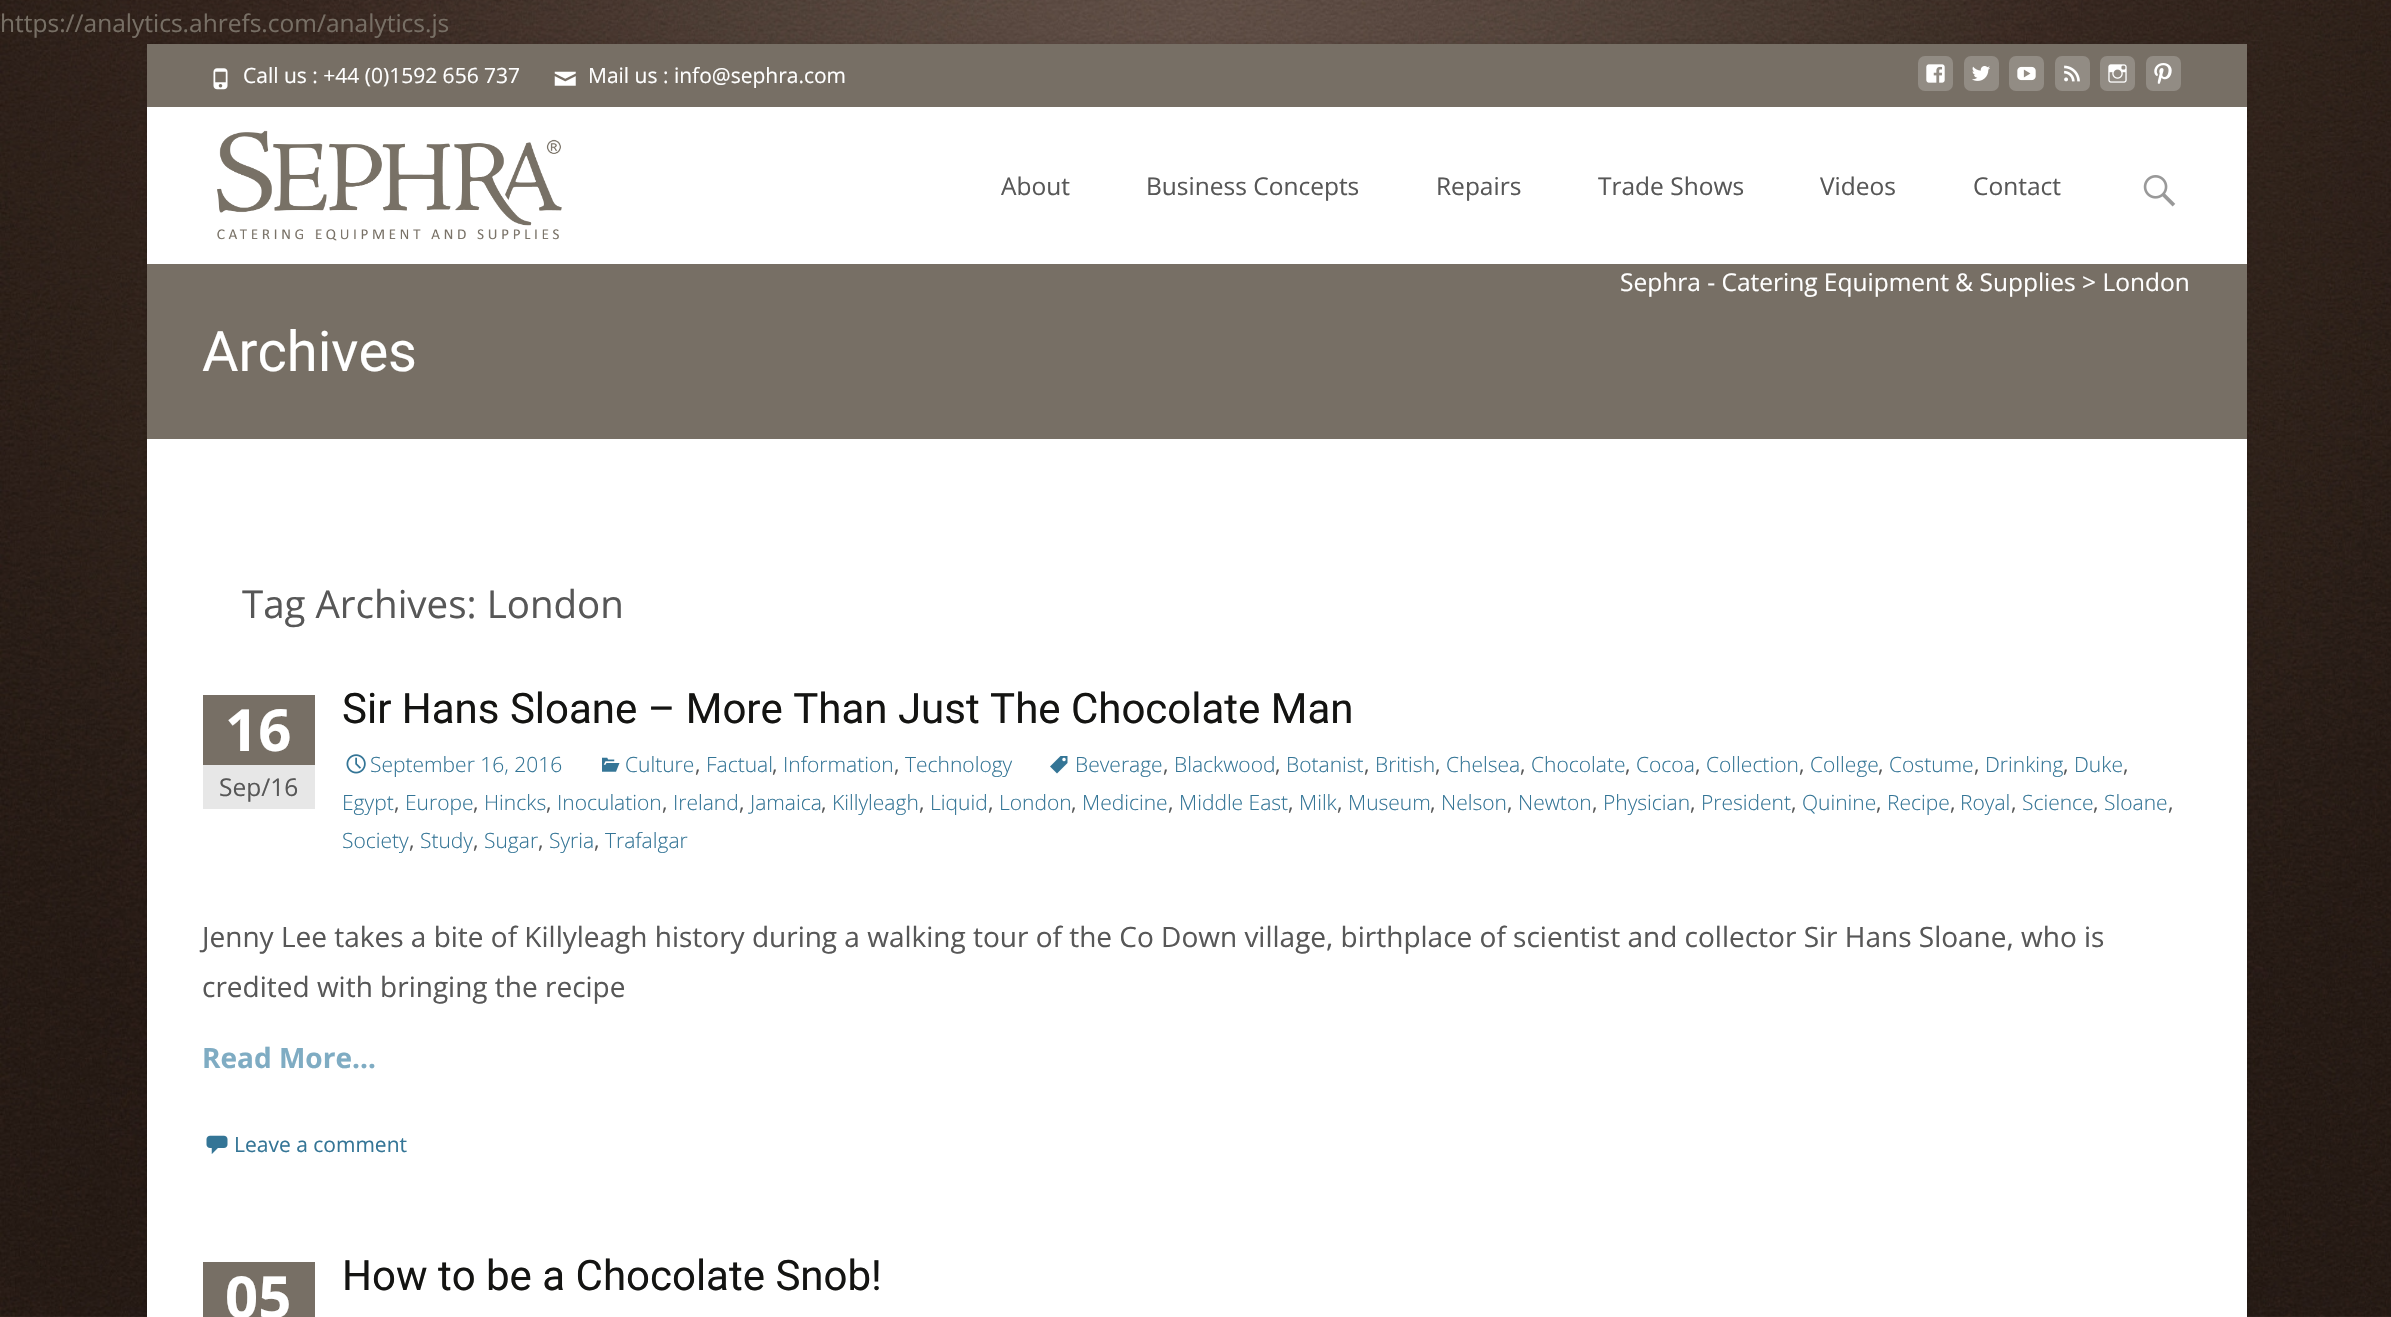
void draw(SkCanvas* canvas) {
	SkPaint fill;
	fill.setAntiAlias(true);
	auto makeFont = [&](const char* family, int weight, float size, bool italic = false) {
		SkFontStyle style(weight, SkFontStyle::kNormal_Width,
			italic ? SkFontStyle::kItalic_Slant : SkFontStyle::kUpright_Slant);
		SkFont result(fontMgr->matchFamilyStyle(family, style), size);
		result.setSubpixel(true);
		return result;
	};
	auto text = [&](const char* s, float x, float y, const SkFont& font) {
		canvas->drawString(s, x, y, font, fill);
	};
	auto box = [&](float l, float t, float r, float b) {
		canvas->drawRect(SkRect::MakeLTRB(l, t, r, b), fill);
	};
	auto roundBox = [&](float l, float t, float r, float b, float radius) {
		canvas->drawRoundRect(SkRect::MakeLTRB(l, t, r, b), radius, radius, fill);
	};
	auto picture = [&](const char* path, float l, float t, float r, float b) {
		auto image = SkImages::DeferredFromEncodedData(SkData::MakeFromFileName(path));
		canvas->drawImageRect(image, SkRect::MakeLTRB(l, t, r, b), SkSamplingOptions());
	};
	canvas->clear(0xFFFFFFFF);
	picture("image0.png", 0, 0, 2391, 1317);
	fill.setColor(0x1A000000);
	fill.setMaskFilter(SkMaskFilter::MakeBlur(kNormal_SkBlurStyle, 3.5f));
	canvas->drawRoundRect(SkRect::MakeLTRB(147, 44, 2247, 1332), 4, 4, fill);
	fill.setMaskFilter(nullptr);
	fill.setColor(0xFFFFFFFF);
	box(147, 107, 2247, 1317);
	fill.setColor(0xFF776F65);
	box(147, 44, 2247, 107);
	picture("image1.png", 213, 68, 228, 90);
	picture("image2.png", 554, 71, 576, 86);
	fill.setColor(0xFF928C84);
	roundBox(1918, 56, 1953, 91, 7);
	picture("image3.png", 1926, 64, 1945, 83);
	roundBox(1964, 56, 1999, 91, 7);
	picture("image4.png", 1972, 66, 1990, 81);
	roundBox(2009, 56, 2044, 91, 7);
	picture("image5.png", 2017, 66, 2036, 81);
	roundBox(2055, 56, 2090, 91, 7);
	picture("image6.png", 2064, 65, 2080, 82);
	roundBox(2100, 56, 2135, 91, 7);
	picture("image7.png", 2108, 64, 2127, 83);
	roundBox(2146, 56, 2181, 91, 7);
	picture("image8.png", 2154, 63, 2172, 84);
	picture("image9.png", 217, 130, 562, 241);
	picture("image10.png", 2143, 175, 2176, 207);
	fill.setColor(0xFF776F65);
	box(147, 264, 2247, 439);
	picture("image11.png", 602, 757, 620, 772);
	picture("image12.png", 1050, 756, 1068, 774);
	picture("image13.png", 346, 754, 366, 774);
	picture("image14.png", 206, 1135, 228, 1154);
	box(203, 695, 315, 765);
	fill.setColor(0xFFE7E7E7);
	box(203, 765, 315, 809);
	fill.setColor(0xFF776F65);
	box(203, 1262, 315, 1317);
	auto font1 = makeFont("Open Sans", 400, 24.5f);
	text("https://analytics.ahrefs.com/analytics.js", 0, 32, font1);
	auto font2 = makeFont("Open Sans", 400, 21);
	fill.setColor(0xFFFFFFFF);
	text("Call us : +44 (0)1592 656 737", 243, 83, font2);
	text("Mail us : info@sephra.com", 588, 83, font2);
	fill.setColor(0xFF575757);
	text("About", 1001, 195, font1);
	text("Business Concepts", 1146, 195, font1);
	text("Repairs", 1436, 195, font1);
	text("Trade Shows", 1598, 195, font1);
	text("Videos", 1820, 195, font1);
	text("Contact", 1973, 195, font1);
	fill.setColor(0xFFFFFFFF);
	text("Sephra - Catering Equipment & Supplies > London", 1620, 291, font1);
	auto font3 = makeFont("Roboto", 400, 56);
	text("Archives", 202, 371, font3);
	auto font4 = makeFont("Open Sans", 400, 38.5f);
	fill.setColor(0xFF575757);
	text("Tag Archives: London", 242, 618, font4);
	auto font5 = makeFont("Roboto", 400, 42);
	fill.setColor(0xFF141412);
	text("Sir Hans Sloane – More Than Just The Chocolate Man", 342, 723, font5);
	auto font6 = makeFont("Open Sans", 300, 21);
	fill.setColor(0xFF347596);
	text("Culture", 625, 772, font6);
	fill.setColor(0xFF575757);
	text(",", 695, 772, font2);
	fill.setColor(0xFF347596);
	text("Factual", 706, 772, font6);
	fill.setColor(0xFF575757);
	text(",", 772, 772, font2);
	fill.setColor(0xFF347596);
	text("Information", 783, 772, font6);
	fill.setColor(0xFF575757);
	text(",", 894, 772, font2);
	fill.setColor(0xFF347596);
	text("Technology", 905, 772, font6);
	text("Beverage", 1075, 772, font6);
	fill.setColor(0xFF575757);
	text(",", 1163, 772, font2);
	fill.setColor(0xFF347596);
	text("Blackwood", 1174, 772, font6);
	fill.setColor(0xFF575757);
	text(",", 1275, 772, font2);
	fill.setColor(0xFF347596);
	text("Botanist", 1286, 772, font6);
	fill.setColor(0xFF575757);
	text(",", 1364, 772, font2);
	fill.setColor(0xFF347596);
	text("British", 1375, 772, font6);
	fill.setColor(0xFF575757);
	text(",", 1435, 772, font2);
	fill.setColor(0xFF347596);
	text("Chelsea", 1446, 772, font6);
	fill.setColor(0xFF575757);
	text(",", 1520, 772, font2);
	fill.setColor(0xFF347596);
	text("Chocolate", 1531, 772, font6);
	fill.setColor(0xFF575757);
	text(",", 1625, 772, font2);
	fill.setColor(0xFF347596);
	text("Cocoa", 1636, 772, font6);
	fill.setColor(0xFF575757);
	text(",", 1695, 772, font2);
	fill.setColor(0xFF347596);
	text("Collection", 1706, 772, font6);
	fill.setColor(0xFF575757);
	text(",", 1799, 772, font2);
	fill.setColor(0xFF347596);
	text("College", 1810, 772, font6);
	fill.setColor(0xFF575757);
	text(",", 1878, 772, font2);
	fill.setColor(0xFF347596);
	text("Costume", 1889, 772, font6);
	fill.setColor(0xFF575757);
	text(",", 1974, 772, font2);
	fill.setColor(0xFF347596);
	text("Drinking", 1985, 772, font6);
	fill.setColor(0xFF575757);
	text(",", 2063, 772, font2);
	fill.setColor(0xFF347596);
	text("Duke", 2074, 772, font6);
	fill.setColor(0xFF575757);
	text(",", 2123, 772, font2);
	fill.setColor(0xFF347596);
	text("Egypt", 342, 810, font6);
	fill.setColor(0xFF575757);
	text(",", 394, 810, font2);
	fill.setColor(0xFF347596);
	text("Europe", 405, 810, font6);
	fill.setColor(0xFF575757);
	text(",", 473, 810, font2);
	fill.setColor(0xFF347596);
	text("Hincks", 484, 810, font6);
	fill.setColor(0xFF575757);
	text(",", 546, 810, font2);
	fill.setColor(0xFF347596);
	text("Inoculation", 557, 810, font6);
	fill.setColor(0xFF575757);
	text(",", 662, 810, font2);
	fill.setColor(0xFF347596);
	text("Ireland", 673, 810, font6);
	fill.setColor(0xFF575757);
	text(",", 739, 810, font2);
	fill.setColor(0xFF347596);
	text("Jamaica", 750, 810, font6);
	fill.setColor(0xFF575757);
	text(",", 821, 810, font2);
	fill.setColor(0xFF347596);
	text("Killyleagh", 832, 810, font6);
	fill.setColor(0xFF575757);
	text(",", 919, 810, font2);
	fill.setColor(0xFF347596);
	text("Liquid", 930, 810, font6);
	fill.setColor(0xFF575757);
	text(",", 988, 810, font2);
	fill.setColor(0xFF347596);
	text("London", 999, 810, font6);
	fill.setColor(0xFF575757);
	text(",", 1071, 810, font2);
	fill.setColor(0xFF347596);
	text("Medicine", 1082, 810, font6);
	fill.setColor(0xFF575757);
	text(",", 1168, 810, font2);
	fill.setColor(0xFF347596);
	text("Middle East", 1179, 810, font6);
	fill.setColor(0xFF575757);
	text(",", 1288, 810, font2);
	fill.setColor(0xFF347596);
	text("Milk", 1299, 810, font6);
	fill.setColor(0xFF575757);
	text(",", 1337, 810, font2);
	fill.setColor(0xFF347596);
	text("Museum", 1348, 810, font6);
	fill.setColor(0xFF575757);
	text(",", 1430, 810, font2);
	fill.setColor(0xFF347596);
	text("Nelson", 1441, 810, font6);
	fill.setColor(0xFF575757);
	text(",", 1507, 810, font2);
	fill.setColor(0xFF347596);
	text("Newton", 1518, 810, font6);
	fill.setColor(0xFF575757);
	text(",", 1592, 810, font2);
	fill.setColor(0xFF347596);
	text("Physician", 1603, 810, font6);
	fill.setColor(0xFF575757);
	text(",", 1690, 810, font2);
	fill.setColor(0xFF347596);
	text("President", 1701, 810, font6);
	fill.setColor(0xFF575757);
	text(",", 1791, 810, font2);
	fill.setColor(0xFF347596);
	text("Quinine", 1802, 810, font6);
	fill.setColor(0xFF575757);
	text(",", 1876, 810, font2);
	fill.setColor(0xFF347596);
	text("Recipe", 1887, 810, font6);
	fill.setColor(0xFF575757);
	text(",", 1950, 810, font2);
	fill.setColor(0xFF347596);
	text("Royal", 1960, 810, font6);
	fill.setColor(0xFF575757);
	text(",", 2011, 810, font2);
	fill.setColor(0xFF347596);
	text("Science", 2022, 810, font6);
	fill.setColor(0xFF575757);
	text(",", 2093, 810, font2);
	fill.setColor(0xFF347596);
	text("Sloane", 2104, 810, font6);
	fill.setColor(0xFF575757);
	text(",", 2168, 810, font2);
	fill.setColor(0xFF347596);
	text("Society", 342, 848, font6);
	fill.setColor(0xFF575757);
	text(",", 409, 848, font2);
	fill.setColor(0xFF347596);
	text("Study", 420, 848, font6);
	fill.setColor(0xFF575757);
	text(",", 473, 848, font2);
	fill.setColor(0xFF347596);
	text("Sugar", 484, 848, font6);
	fill.setColor(0xFF575757);
	text(",", 538, 848, font2);
	fill.setColor(0xFF347596);
	text("Syria", 549, 848, font6);
	fill.setColor(0xFF575757);
	text(",", 594, 848, font2);
	fill.setColor(0xFF347596);
	text("Trafalgar", 605, 848, font6);
	text("September 16, 2016", 370, 772, font6);
	auto font7 = makeFont("Open Sans", 400, 28);
	fill.setColor(0xFF575757);
	text("Jenny Lee takes a bite of Killyleagh history during a walking tour of the Co Down village, birthplace of scientist and collector Sir Hans Sloane, who is", 202, 947, font7);
	text("credited with bringing the recipe", 202, 997, font7);
	auto font8 = makeFont("Open Sans", 700, 28);
	fill.setColor(0xFF7FACC3);
	text("Read More…", 202, 1068, font8);
	fill.setColor(0xFF347596);
	text("Leave a comment", 234, 1152, font2);
	auto font9 = makeFont("Open Sans", 700, 58);
	fill.setColor(0xFFFFFFFF);
	text("16", 225, 751, font9);
	fill.setColor(0xFF575757);
	text("Sep/16", 219, 796, font1);
	fill.setColor(0xFFFFFFFF);
	text("05", 225, 1318, font9);
	fill.setColor(0xFF141412);
	text("How to be a Chocolate Snob!", 342, 1290, font5);
}
